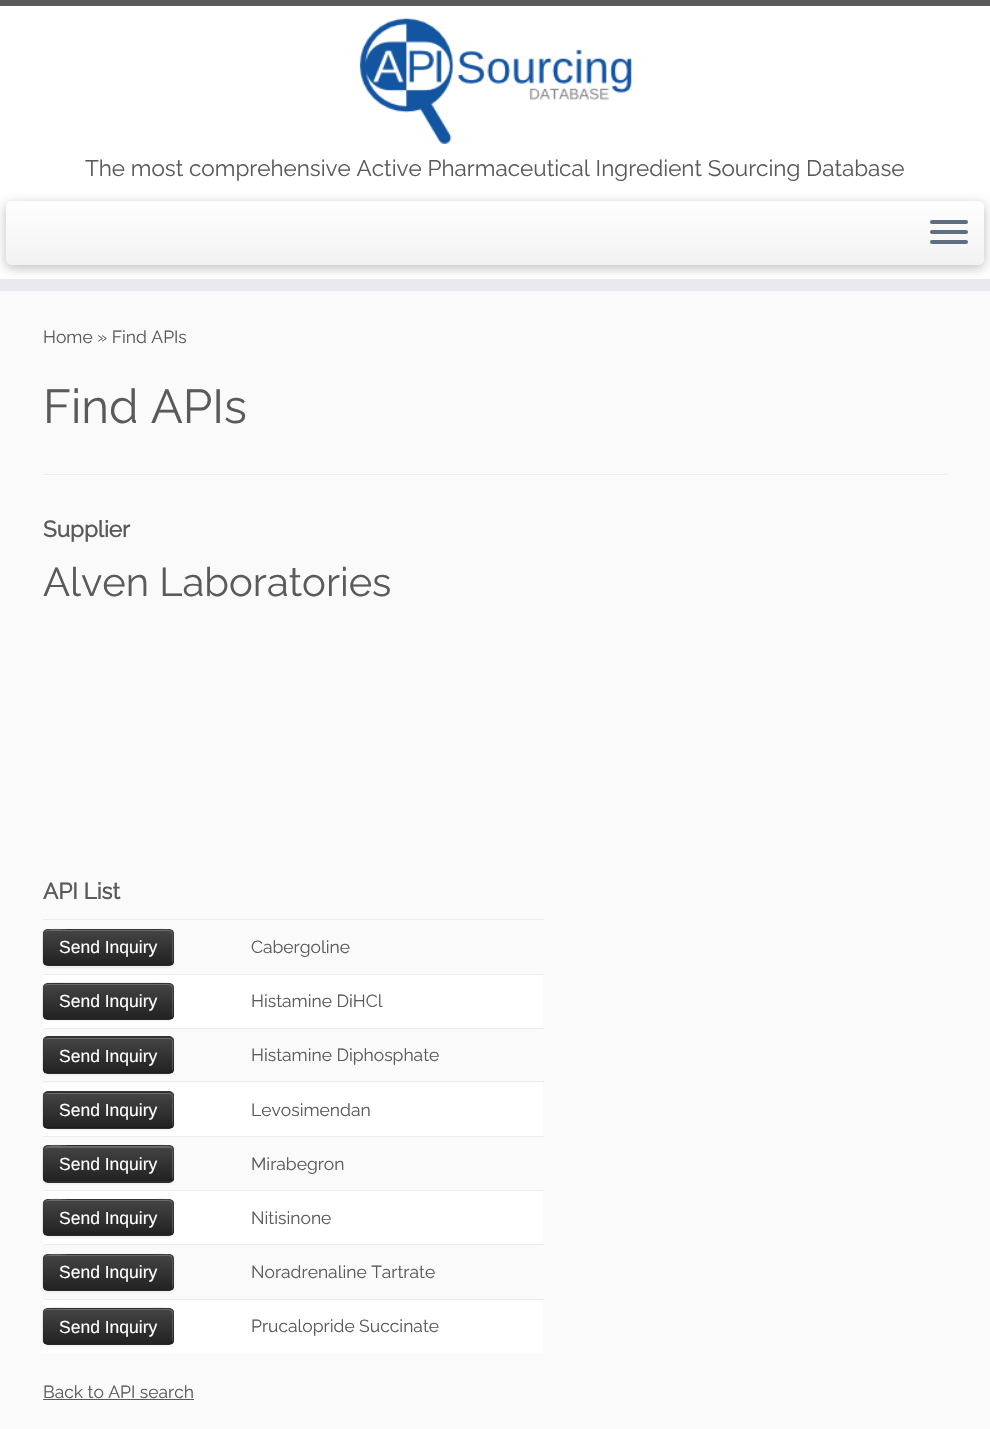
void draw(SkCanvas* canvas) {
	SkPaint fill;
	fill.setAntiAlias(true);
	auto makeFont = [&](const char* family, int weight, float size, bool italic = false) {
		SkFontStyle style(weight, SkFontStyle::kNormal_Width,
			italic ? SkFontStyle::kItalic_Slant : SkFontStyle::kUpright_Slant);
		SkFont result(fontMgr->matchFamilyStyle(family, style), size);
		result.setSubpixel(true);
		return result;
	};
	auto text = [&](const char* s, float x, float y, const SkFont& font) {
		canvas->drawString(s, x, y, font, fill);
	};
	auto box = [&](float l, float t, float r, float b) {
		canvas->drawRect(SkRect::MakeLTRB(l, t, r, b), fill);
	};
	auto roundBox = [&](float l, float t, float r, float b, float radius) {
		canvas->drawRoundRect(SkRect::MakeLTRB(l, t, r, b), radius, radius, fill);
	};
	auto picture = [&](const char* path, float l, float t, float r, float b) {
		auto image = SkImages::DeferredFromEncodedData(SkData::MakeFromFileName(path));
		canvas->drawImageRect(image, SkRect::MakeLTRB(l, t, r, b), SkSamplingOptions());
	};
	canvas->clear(0xFFFAFAFA);
	fill.setColor(0xFFFFFFFF);
	box(0, 6, 990, 279);
	fill.setColor(0xFF5A5A5A);
	box(0, 0, 990, 6);
	fill.setColor(0xFFE9EAEE);
	box(0, 279, 990, 291);
	picture("image0.png", 359, 18, 632, 144);
	fill.setColor(0x40000000);
	fill.setMaskFilter(SkMaskFilter::MakeBlur(kNormal_SkBlurStyle, 6));
	canvas->drawRoundRect(SkRect::MakeLTRB(6, 204, 984, 268), 5, 5, fill);
	fill.setMaskFilter(nullptr);
	{
		const SkColor colors[] = {0xFFFFFFFF, 0xFFF2F2F2};
		const float stops[] = {0, 1};
		const SkPoint ends[] = {{495, 201}, {495, 265}};
		fill.setShader(SkGradientShader::MakeLinear(ends, colors, stops, 2, SkTileMode::kClamp));
		fill.setAlpha(255);
	}
	roundBox(6, 201, 984, 265, 5);
	fill.setShader(nullptr);
	fill.setColor(0xFF5F6F81);
	roundBox(930, 220, 968, 224, 2);
	roundBox(930, 230, 968, 234, 2);
	roundBox(930, 240, 968, 244, 2);
	fill.setColor(0xFFEEEEEE);
	box(43, 474, 948, 475);
	fill.setColor(0xFFFFFFFF);
	box(43, 475, 948, 476);
	fill.setColor(0x0D000000);
	fill.setMaskFilter(SkMaskFilter::MakeBlur(kNormal_SkBlurStyle, 1));
	canvas->drawRoundRect(SkRect::MakeLTRB(43, 930, 174, 968), 5, 5, fill);
	fill.setMaskFilter(nullptr);
	fill.setColor(0xFF363636);
	roundBox(43, 929, 174, 966, 5);
	canvas->save();
	canvas->clipPath(SkPathBuilder().moveTo(48, 929).lineTo(169, 929).cubicTo(172, 929, 174, 931, 174, 934).lineTo(174, 961).cubicTo(174, 964, 172, 966, 169, 966).lineTo(48, 966).cubicTo(45, 966, 43, 964, 43, 961).lineTo(43, 934).cubicTo(43, 931, 45, 929, 48, 929).close().detach(), true);
	{
		const SkColor colors[] = {0xFF444444, 0xFF222222};
		const float stops[] = {0, 1};
		const SkPoint ends[] = {{108, 930}, {108, 965}};
		fill.setShader(SkGradientShader::MakeLinear(ends, colors, stops, 2, SkTileMode::kClamp));
		fill.setAlpha(255);
	}
	box(43, 930, 174, 965);
	canvas->restore();
	fill.setShader(nullptr);
	fill.setColor(0x33FFFFFF);
	canvas->drawPath(SkPathBuilder().moveTo(48, 931).lineTo(169, 931).cubicTo(174, 931, 172, 942, 172, 944).lineTo(172, 964).cubicTo(174, 961, 173, 951, 173, 948).cubicTo(173, 925, 175, 930, 149, 930).lineTo(68, 930).cubicTo(66, 930, 44, 925, 44, 935).cubicTo(44, 933, 45, 931, 48, 931).close().detach(), fill);
	fill.setStyle(SkPaint::kStroke_Style);
	fill.setStrokeWidth(1.2f);
	fill.setColor(0x40000000);
	canvas->drawPath(SkPathBuilder().moveTo(172, 964.5f).lineTo(169, 965.5f).lineTo(67.5f, 965.5f).lineTo(47.5f, 965.5f).lineTo(44.5f, 964.5f).detach(), fill);
	fill.setColor(0x1A000000);
	canvas->drawPath(SkPathBuilder().moveTo(44.5f, 964.5f).cubicTo(41.5f, 961.5f, 43, 955, 43, 952).cubicTo(43, 925, 38.5f, 929.5f, 67.5f, 929.5f).lineTo(148.5f, 929.5f).cubicTo(177.5f, 929.5f, 173, 925, 173, 952).cubicTo(173, 955, 174.5f, 961.5f, 172, 964.5f).detach(), fill);
	fill.setStyle(SkPaint::kFill_Style);
	fill.setColor(0xFFEDEDED);
	box(43, 919, 544, 920);
	fill.setColor(0xFFFFFFFF);
	box(43, 975, 543, 1028);
	fill.setColor(0x0D000000);
	fill.setMaskFilter(SkMaskFilter::MakeBlur(kNormal_SkBlurStyle, 1));
	canvas->drawRoundRect(SkRect::MakeLTRB(43, 984, 174, 1021), 5, 5, fill);
	fill.setMaskFilter(nullptr);
	fill.setColor(0xFF363636);
	roundBox(43, 983, 174, 1020, 5);
	canvas->save();
	canvas->clipPath(SkPathBuilder().moveTo(48, 983).lineTo(169, 983).cubicTo(172, 983, 174, 985, 174, 988).lineTo(174, 1015).cubicTo(174, 1018, 172, 1020, 169, 1020).lineTo(48, 1020).cubicTo(45, 1020, 43, 1018, 43, 1015).lineTo(43, 988).cubicTo(43, 985, 45, 983, 48, 983).close().detach(), true);
	{
		const SkColor colors[] = {0xFF444444, 0xFF222222};
		const float stops[] = {0, 1};
		const SkPoint ends[] = {{108, 984}, {108, 1019}};
		fill.setShader(SkGradientShader::MakeLinear(ends, colors, stops, 2, SkTileMode::kClamp));
		fill.setAlpha(255);
	}
	box(43, 984, 174, 1019);
	canvas->restore();
	fill.setShader(nullptr);
	fill.setColor(0x33FFFFFF);
	canvas->drawPath(SkPathBuilder().moveTo(48, 985).lineTo(169, 985).cubicTo(174, 985, 172, 996, 172, 998).lineTo(172, 1018).cubicTo(172, 1017, 173, 1016, 173, 1015).lineTo(173, 988).cubicTo(173, 986, 171, 984, 169, 984).lineTo(48, 984).cubicTo(46, 984, 44, 986, 44, 988).lineTo(44, 989).cubicTo(44, 987, 45, 985, 48, 985).close().detach(), fill);
	fill.setStyle(SkPaint::kStroke_Style);
	fill.setColor(0x40000000);
	canvas->drawPath(SkPathBuilder().moveTo(172, 1018).lineTo(169, 1019.5f).lineTo(67.5f, 1019.5f).lineTo(47.5f, 1019.5f).lineTo(44.5f, 1018).detach(), fill);
	fill.setColor(0x1A000000);
	canvas->drawPath(SkPathBuilder().moveTo(44.5f, 1018).cubicTo(41.5f, 1015.5f, 43, 1009, 43, 1006).cubicTo(43, 978.5f, 38.5f, 983, 67.5f, 983).lineTo(148.5f, 983).cubicTo(177.5f, 983, 173, 978.5f, 173, 1006).cubicTo(173, 1009, 174.5f, 1015.5f, 172, 1018).detach(), fill);
	fill.setStyle(SkPaint::kFill_Style);
	fill.setColor(0xFFEDEDED);
	box(43, 974, 544, 975);
	fill.setColor(0x0D000000);
	fill.setMaskFilter(SkMaskFilter::MakeBlur(kNormal_SkBlurStyle, 1));
	canvas->drawRoundRect(SkRect::MakeLTRB(43, 1038, 174, 1075), 5, 5, fill);
	fill.setMaskFilter(nullptr);
	fill.setColor(0xFF363636);
	roundBox(43, 1036, 174, 1074, 5);
	canvas->save();
	canvas->clipPath(SkPathBuilder().moveTo(48, 1036).lineTo(169, 1036).cubicTo(172, 1036, 174, 1038, 174, 1041).lineTo(174, 1069).cubicTo(174, 1072, 172, 1074, 169, 1074).lineTo(48, 1074).cubicTo(45, 1074, 43, 1072, 43, 1069).lineTo(43, 1041).cubicTo(43, 1038, 45, 1036, 48, 1036).close().detach(), true);
	{
		const SkColor colors[] = {0xFF444444, 0xFF222222};
		const float stops[] = {0, 1};
		const SkPoint ends[] = {{108, 1038}, {108, 1073}};
		fill.setShader(SkGradientShader::MakeLinear(ends, colors, stops, 2, SkTileMode::kClamp));
		fill.setAlpha(255);
	}
	box(43, 1038, 174, 1073);
	canvas->restore();
	fill.setShader(nullptr);
	fill.setColor(0x33FFFFFF);
	canvas->drawPath(SkPathBuilder().moveTo(48, 1039).lineTo(169, 1039).cubicTo(171, 1039, 172, 1040, 172, 1042).lineTo(172, 1072).cubicTo(172, 1071, 173, 1070, 173, 1069).lineTo(173, 1042).cubicTo(173, 1040, 171, 1038, 169, 1038).lineTo(48, 1038).cubicTo(46, 1038, 45, 1039, 44, 1040).cubicTo(45, 1039, 46, 1039, 48, 1039).close().detach(), fill);
	fill.setStyle(SkPaint::kStroke_Style);
	fill.setColor(0x40000000);
	canvas->drawPath(SkPathBuilder().moveTo(172, 1072).lineTo(169, 1073).lineTo(47, 1073).lineTo(44.5f, 1072).detach(), fill);
	fill.setColor(0x1A000000);
	canvas->drawPath(SkPathBuilder().moveTo(44.5f, 1072).cubicTo(41.5f, 1069, 43, 1062.5f, 43, 1059.5f).cubicTo(43, 1032.5f, 38.5f, 1037, 67.5f, 1037).lineTo(148.5f, 1037).cubicTo(177.5f, 1037, 173, 1032.5f, 173, 1059.5f).cubicTo(173, 1062.5f, 174.5f, 1069, 172, 1072).detach(), fill);
	fill.setStyle(SkPaint::kFill_Style);
	fill.setColor(0xFFEDEDED);
	box(43, 1028, 544, 1029);
	fill.setColor(0xFFFFFFFF);
	box(43, 1083, 543, 1136);
	fill.setColor(0x0D000000);
	fill.setMaskFilter(SkMaskFilter::MakeBlur(kNormal_SkBlurStyle, 1));
	canvas->drawRoundRect(SkRect::MakeLTRB(43, 1093, 174, 1130), 5, 5, fill);
	fill.setMaskFilter(nullptr);
	fill.setColor(0xFF363636);
	roundBox(43, 1091, 174, 1129, 5);
	canvas->save();
	canvas->clipPath(SkPathBuilder().moveTo(48, 1091).lineTo(169, 1091).cubicTo(172, 1091, 174, 1093, 174, 1096).lineTo(174, 1124).cubicTo(174, 1127, 172, 1129, 169, 1129).lineTo(48, 1129).cubicTo(45, 1129, 43, 1127, 43, 1124).lineTo(43, 1096).cubicTo(43, 1093, 45, 1091, 48, 1091).close().detach(), true);
	{
		const SkColor colors[] = {0xFF444444, 0xFF222222};
		const float stops[] = {0, 1};
		const SkPoint ends[] = {{108, 1093}, {108, 1128}};
		fill.setShader(SkGradientShader::MakeLinear(ends, colors, stops, 2, SkTileMode::kClamp));
		fill.setAlpha(255);
	}
	box(43, 1093, 174, 1128);
	canvas->restore();
	fill.setShader(nullptr);
	fill.setColor(0x33FFFFFF);
	canvas->drawPath(SkPathBuilder().moveTo(48, 1094).lineTo(169, 1094).cubicTo(174, 1094, 172, 1104, 172, 1107).lineTo(172, 1127).cubicTo(172, 1126, 173, 1125, 173, 1124).lineTo(173, 1097).cubicTo(173, 1095, 171, 1093, 169, 1093).lineTo(48, 1093).cubicTo(46, 1093, 44, 1095, 44, 1097).lineTo(44, 1098).cubicTo(44, 1095, 45, 1094, 48, 1094).close().detach(), fill);
	fill.setStyle(SkPaint::kStroke_Style);
	fill.setColor(0x40000000);
	canvas->drawPath(SkPathBuilder().moveTo(172, 1127).lineTo(169, 1128).lineTo(67.5f, 1128).lineTo(47.5f, 1128).lineTo(44.5f, 1127).detach(), fill);
	fill.setColor(0x1A000000);
	canvas->drawPath(SkPathBuilder().moveTo(44.5f, 1127).cubicTo(41.5f, 1124, 43, 1117.5f, 43, 1114.5f).cubicTo(43, 1087.5f, 38.5f, 1092, 67.5f, 1092).lineTo(148.5f, 1092).cubicTo(177.5f, 1092, 173, 1087.5f, 173, 1114.5f).cubicTo(173, 1117.5f, 174.5f, 1124, 172, 1127).detach(), fill);
	fill.setStyle(SkPaint::kFill_Style);
	fill.setColor(0xFFEDEDED);
	box(43, 1081, 544, 1082);
	fill.setColor(0x0D000000);
	fill.setMaskFilter(SkMaskFilter::MakeBlur(kNormal_SkBlurStyle, 1));
	canvas->drawRoundRect(SkRect::MakeLTRB(43, 1146, 174, 1184), 5, 5, fill);
	fill.setMaskFilter(nullptr);
	fill.setColor(0xFF363636);
	roundBox(43, 1145, 174, 1183, 5);
	canvas->save();
	canvas->clipPath(SkPathBuilder().moveTo(48, 1145).lineTo(169, 1145).cubicTo(172, 1145, 174, 1147, 174, 1150).lineTo(174, 1178).cubicTo(174, 1181, 172, 1183, 169, 1183).lineTo(48, 1183).cubicTo(45, 1183, 43, 1181, 43, 1178).lineTo(43, 1150).cubicTo(43, 1147, 45, 1145, 48, 1145).close().detach(), true);
	{
		const SkColor colors[] = {0xFF444444, 0xFF222222};
		const float stops[] = {0, 1};
		const SkPoint ends[] = {{108, 1146}, {108, 1181}};
		fill.setShader(SkGradientShader::MakeLinear(ends, colors, stops, 2, SkTileMode::kClamp));
		fill.setAlpha(255);
	}
	box(43, 1146, 174, 1181);
	canvas->restore();
	fill.setShader(nullptr);
	fill.setColor(0x33FFFFFF);
	canvas->drawPath(SkPathBuilder().moveTo(48, 1148).lineTo(169, 1148).cubicTo(171, 1148, 172, 1149, 172, 1151).lineTo(172, 1180).cubicTo(174, 1177, 173, 1167, 173, 1164).cubicTo(173, 1141, 175, 1146, 149, 1146).lineTo(68, 1146).cubicTo(66, 1146, 44, 1141, 44, 1151).cubicTo(44, 1149, 45, 1148, 48, 1148).close().detach(), fill);
	fill.setStyle(SkPaint::kStroke_Style);
	fill.setColor(0x40000000);
	canvas->drawPath(SkPathBuilder().moveTo(172, 1180.5f).lineTo(169, 1182).lineTo(67.5f, 1182).lineTo(47.5f, 1182).lineTo(44.5f, 1180.5f).detach(), fill);
	fill.setColor(0x1A000000);
	canvas->drawPath(SkPathBuilder().moveTo(44.5f, 1180.5f).cubicTo(41.5f, 1178, 43, 1171.5f, 43, 1168.5f).cubicTo(43, 1141, 38.5f, 1145.5f, 67.5f, 1145.5f).lineTo(148.5f, 1145.5f).cubicTo(177.5f, 1145.5f, 173, 1141, 173, 1168.5f).cubicTo(173, 1171.5f, 174.5f, 1178, 172, 1180.5f).detach(), fill);
	fill.setStyle(SkPaint::kFill_Style);
	fill.setColor(0xFFEDEDED);
	box(43, 1136, 544, 1137);
	fill.setColor(0xFFFFFFFF);
	box(43, 1191, 543, 1244);
	fill.setColor(0x0D000000);
	fill.setMaskFilter(SkMaskFilter::MakeBlur(kNormal_SkBlurStyle, 1));
	canvas->drawRoundRect(SkRect::MakeLTRB(43, 1200, 174, 1238), 5, 5, fill);
	fill.setMaskFilter(nullptr);
	fill.setColor(0xFF363636);
	roundBox(43, 1199, 174, 1236, 5);
	canvas->save();
	canvas->clipPath(SkPathBuilder().moveTo(48, 1199).lineTo(169, 1199).cubicTo(172, 1199, 174, 1201, 174, 1204).lineTo(174, 1231).cubicTo(174, 1234, 172, 1236, 169, 1236).lineTo(48, 1236).cubicTo(45, 1236, 43, 1234, 43, 1231).lineTo(43, 1204).cubicTo(43, 1201, 45, 1199, 48, 1199).close().detach(), true);
	{
		const SkColor colors[] = {0xFF444444, 0xFF222222};
		const float stops[] = {0, 1};
		const SkPoint ends[] = {{108, 1200}, {108, 1235}};
		fill.setShader(SkGradientShader::MakeLinear(ends, colors, stops, 2, SkTileMode::kClamp));
		fill.setAlpha(255);
	}
	box(43, 1200, 174, 1235);
	canvas->restore();
	fill.setShader(nullptr);
	fill.setColor(0x33FFFFFF);
	canvas->drawPath(SkPathBuilder().moveTo(48, 1201).lineTo(169, 1201).cubicTo(174, 1201, 172, 1212, 172, 1214).lineTo(172, 1234).cubicTo(174, 1231, 173, 1221, 173, 1218).cubicTo(173, 1195, 175, 1200, 149, 1200).lineTo(68, 1200).cubicTo(66, 1200, 44, 1195, 44, 1205).cubicTo(44, 1203, 45, 1201, 48, 1201).close().detach(), fill);
	fill.setStyle(SkPaint::kStroke_Style);
	fill.setColor(0x40000000);
	canvas->drawPath(SkPathBuilder().moveTo(172, 1234.5f).lineTo(169, 1235.5f).lineTo(67.5f, 1235.5f).lineTo(47.5f, 1235.5f).lineTo(44.5f, 1234.5f).detach(), fill);
	fill.setColor(0x1A000000);
	canvas->drawPath(SkPathBuilder().moveTo(44.5f, 1234.5f).cubicTo(41.5f, 1231.5f, 43, 1225, 43, 1222).cubicTo(43, 1195, 38.5f, 1199.5f, 67.5f, 1199.5f).lineTo(148.5f, 1199.5f).cubicTo(177.5f, 1199.5f, 173, 1195, 173, 1222).cubicTo(173, 1225, 174.5f, 1231.5f, 172, 1234.5f).detach(), fill);
	fill.setStyle(SkPaint::kFill_Style);
	fill.setColor(0xFFEDEDED);
	box(43, 1190, 544, 1191);
	fill.setColor(0x0D000000);
	fill.setMaskFilter(SkMaskFilter::MakeBlur(kNormal_SkBlurStyle, 1));
	canvas->drawRoundRect(SkRect::MakeLTRB(43, 1255, 174, 1293), 5, 5, fill);
	fill.setMaskFilter(nullptr);
	fill.setColor(0xFF363636);
	roundBox(43, 1254, 174, 1291, 5);
	canvas->save();
	canvas->clipPath(SkPathBuilder().moveTo(48, 1254).lineTo(169, 1254).cubicTo(172, 1254, 174, 1256, 174, 1259).lineTo(174, 1286).cubicTo(174, 1289, 172, 1291, 169, 1291).lineTo(48, 1291).cubicTo(45, 1291, 43, 1289, 43, 1286).lineTo(43, 1259).cubicTo(43, 1256, 45, 1254, 48, 1254).close().detach(), true);
	{
		const SkColor colors[] = {0xFF444444, 0xFF222222};
		const float stops[] = {0, 1};
		const SkPoint ends[] = {{108, 1255}, {108, 1290}};
		fill.setShader(SkGradientShader::MakeLinear(ends, colors, stops, 2, SkTileMode::kClamp));
		fill.setAlpha(255);
	}
	box(43, 1255, 174, 1290);
	canvas->restore();
	fill.setShader(nullptr);
	fill.setColor(0x33FFFFFF);
	canvas->drawPath(SkPathBuilder().moveTo(48, 1256).lineTo(169, 1256).cubicTo(174, 1256, 172, 1267, 172, 1269).lineTo(172, 1289).cubicTo(174, 1286, 173, 1276, 173, 1272).cubicTo(173, 1250, 175, 1255, 149, 1255).lineTo(68, 1255).cubicTo(66, 1255, 44, 1250, 44, 1260).cubicTo(44, 1258, 45, 1256, 48, 1256).close().detach(), fill);
	fill.setStyle(SkPaint::kStroke_Style);
	fill.setColor(0x40000000);
	canvas->drawPath(SkPathBuilder().moveTo(172, 1289.5f).lineTo(169, 1290.5f).lineTo(67.5f, 1290.5f).lineTo(47.5f, 1290.5f).lineTo(44.5f, 1289.5f).detach(), fill);
	fill.setColor(0x1A000000);
	canvas->drawPath(SkPathBuilder().moveTo(44.5f, 1289.5f).cubicTo(41.5f, 1286.5f, 43, 1280, 43, 1277).cubicTo(43, 1250, 38.5f, 1254.5f, 67.5f, 1254.5f).lineTo(148.5f, 1254.5f).cubicTo(177.5f, 1254.5f, 173, 1250, 173, 1277).cubicTo(173, 1280, 174.5f, 1286.5f, 172, 1289.5f).detach(), fill);
	fill.setStyle(SkPaint::kFill_Style);
	fill.setColor(0xFFEDEDED);
	box(43, 1244, 544, 1245);
	fill.setColor(0xFFFFFFFF);
	box(43, 1300, 543, 1353);
	fill.setColor(0x0D000000);
	fill.setMaskFilter(SkMaskFilter::MakeBlur(kNormal_SkBlurStyle, 1));
	canvas->drawRoundRect(SkRect::MakeLTRB(43, 1309, 174, 1346), 5, 5, fill);
	fill.setMaskFilter(nullptr);
	fill.setColor(0xFF363636);
	roundBox(43, 1308, 174, 1345, 5);
	canvas->save();
	canvas->clipPath(SkPathBuilder().moveTo(48, 1308).lineTo(169, 1308).cubicTo(172, 1308, 174, 1310, 174, 1313).lineTo(174, 1340).cubicTo(174, 1343, 172, 1345, 169, 1345).lineTo(48, 1345).cubicTo(45, 1345, 43, 1343, 43, 1340).lineTo(43, 1313).cubicTo(43, 1310, 45, 1308, 48, 1308).close().detach(), true);
	{
		const SkColor colors[] = {0xFF444444, 0xFF222222};
		const float stops[] = {0, 1};
		const SkPoint ends[] = {{108, 1309}, {108, 1344}};
		fill.setShader(SkGradientShader::MakeLinear(ends, colors, stops, 2, SkTileMode::kClamp));
		fill.setAlpha(255);
	}
	box(43, 1309, 174, 1344);
	canvas->restore();
	fill.setShader(nullptr);
	fill.setColor(0x33FFFFFF);
	canvas->drawPath(SkPathBuilder().moveTo(48, 1310).lineTo(169, 1310).cubicTo(174, 1310, 172, 1321, 172, 1323).lineTo(172, 1343).cubicTo(172, 1342, 173, 1341, 173, 1340).lineTo(173, 1313).cubicTo(173, 1311, 171, 1309, 169, 1309).lineTo(48, 1309).cubicTo(46, 1309, 44, 1311, 44, 1313).lineTo(44, 1314).cubicTo(44, 1312, 45, 1310, 48, 1310).close().detach(), fill);
	fill.setStyle(SkPaint::kStroke_Style);
	fill.setColor(0x40000000);
	canvas->drawPath(SkPathBuilder().moveTo(172, 1343).lineTo(169, 1344.5f).lineTo(47, 1344.5f).lineTo(44.5f, 1343).detach(), fill);
	fill.setColor(0x1A000000);
	canvas->drawPath(SkPathBuilder().moveTo(44.5f, 1343).cubicTo(41.5f, 1340.5f, 43, 1334, 43, 1331).cubicTo(43, 1303.5f, 38.5f, 1308, 67.5f, 1308).lineTo(148.5f, 1308).cubicTo(177.5f, 1308, 173, 1303.5f, 173, 1331).cubicTo(173, 1334, 174.5f, 1340.5f, 172, 1343).detach(), fill);
	fill.setStyle(SkPaint::kFill_Style);
	fill.setColor(0xFFEDEDED);
	box(43, 1299, 544, 1300);
	fill.setColor(0xFF5A5A5A);
	box(43, 1399, 194, 1400);
	auto font1 = makeFont("Raleway", 100, 22.5f);
	text("The most comprehensive Active Pharmaceutical Ingredient Sourcing Database", 85, 176, font1);
	auto font2 = makeFont("Raleway", 100, 17.5f);
	text("Home » Find APIs", 43, 343, font2);
	auto font3 = makeFont("Raleway", 100, 47.5f);
	text("Find APIs", 43, 423, font3);
	auto font4 = makeFont("Raleway", 700, 22.5f);
	text("Supplier", 43, 537, font4);
	auto font5 = makeFont("Raleway", 100, 40);
	text("Alven Laboratories", 43, 596, font5);
	text("API List", 43, 899, font4);
	auto font6 = makeFont("Liberation Sans", 400, 17.5f);
	fill.setColor(0xFFFFFFFF);
	text("Send Inquiry", 59, 953, font6);
	fill.setColor(0xFF5A5A5A);
	text("Cabergoline", 251, 953, font2);
	fill.setColor(0xFFFFFFFF);
	text("Send Inquiry", 59, 1007, font6);
	fill.setColor(0xFF5A5A5A);
	text("Histamine DiHCl", 251, 1007, font2);
	fill.setColor(0xFFFFFFFF);
	text("Send Inquiry", 59, 1062, font6);
	fill.setColor(0xFF5A5A5A);
	text("Histamine Diphosphate", 251, 1061, font2);
	fill.setColor(0xFFFFFFFF);
	text("Send Inquiry", 59, 1116, font6);
	fill.setColor(0xFF5A5A5A);
	text("Levosimendan", 251, 1116, font2);
	fill.setColor(0xFFFFFFFF);
	text("Send Inquiry", 59, 1170, font6);
	fill.setColor(0xFF5A5A5A);
	text("Mirabegron", 251, 1170, font2);
	fill.setColor(0xFFFFFFFF);
	text("Send Inquiry", 59, 1224, font6);
	fill.setColor(0xFF5A5A5A);
	text("Nitisinone", 251, 1224, font2);
	fill.setColor(0xFFFFFFFF);
	text("Send Inquiry", 59, 1278, font6);
	fill.setColor(0xFF5A5A5A);
	text("Noradrenaline Tartrate", 251, 1278, font2);
	fill.setColor(0xFFFFFFFF);
	text("Send Inquiry", 59, 1333, font6);
	fill.setColor(0xFF5A5A5A);
	text("Prucalopride Succinate", 251, 1332, font2);
	text("Back to API search", 43, 1398, font2);
}
